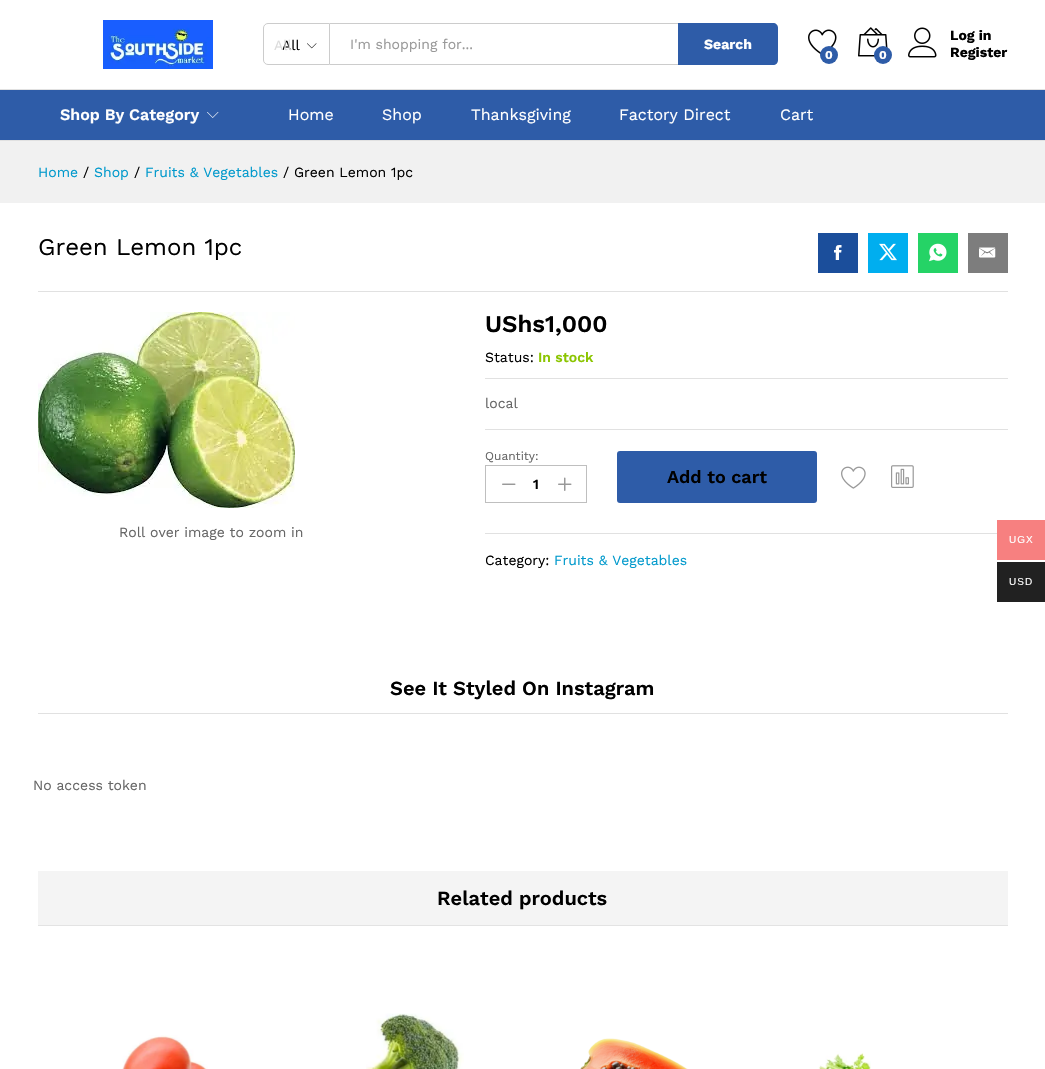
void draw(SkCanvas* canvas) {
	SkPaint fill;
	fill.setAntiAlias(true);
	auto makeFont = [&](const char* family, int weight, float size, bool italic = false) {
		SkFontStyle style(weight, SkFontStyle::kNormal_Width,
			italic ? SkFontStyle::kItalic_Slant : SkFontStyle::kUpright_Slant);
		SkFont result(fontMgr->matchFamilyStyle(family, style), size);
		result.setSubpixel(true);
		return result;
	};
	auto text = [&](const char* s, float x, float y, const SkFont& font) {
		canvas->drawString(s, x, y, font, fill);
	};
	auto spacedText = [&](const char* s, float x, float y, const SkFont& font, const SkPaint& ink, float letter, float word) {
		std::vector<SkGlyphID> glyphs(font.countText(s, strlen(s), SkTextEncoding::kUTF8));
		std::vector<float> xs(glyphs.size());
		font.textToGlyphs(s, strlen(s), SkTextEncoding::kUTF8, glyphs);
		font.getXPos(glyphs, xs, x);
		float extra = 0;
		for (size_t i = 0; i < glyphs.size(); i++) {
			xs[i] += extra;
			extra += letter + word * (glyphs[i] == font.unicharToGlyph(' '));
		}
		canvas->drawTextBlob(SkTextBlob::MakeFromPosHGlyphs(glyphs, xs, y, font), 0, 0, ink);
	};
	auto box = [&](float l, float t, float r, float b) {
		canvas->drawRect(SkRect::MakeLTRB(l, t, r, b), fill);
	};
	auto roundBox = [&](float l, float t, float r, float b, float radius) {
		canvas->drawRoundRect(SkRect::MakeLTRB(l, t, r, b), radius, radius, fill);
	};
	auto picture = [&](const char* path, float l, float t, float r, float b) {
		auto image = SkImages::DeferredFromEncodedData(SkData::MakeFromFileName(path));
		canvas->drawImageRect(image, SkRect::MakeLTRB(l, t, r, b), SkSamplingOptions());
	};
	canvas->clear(0xFFFFFFFF);
	picture("image0.png", 103, 20, 213, 69);
	fill.setStyle(SkPaint::kStroke_Style);
	fill.setStrokeWidth(1);
	fill.setColor(0xFFCCCCCC);
	canvas->drawPath(SkPathBuilder().moveTo(268, 23.5f).lineTo(329.5f, 23.5f).lineTo(329.5f, 64.5f).lineTo(268, 64.5f).cubicTo(265.5f, 64.5f, 263.5f, 62.5f, 263.5f, 60).lineTo(263.5f, 28).cubicTo(263.5f, 25.5f, 265.5f, 23.5f, 268, 23.5f).close().detach(), fill);
	picture("image1.png", 307, 43, 317, 49);
	fill.setStyle(SkPaint::kFill_Style);
	box(330, 23, 678, 24);
	box(330, 64, 678, 65);
	fill.setColor(0xFF2E5CA8);
	canvas->drawPath(SkPathBuilder().moveTo(678, 23).lineTo(773, 23).cubicTo(776, 23, 778, 25, 778, 28).lineTo(778, 60).cubicTo(778, 63, 776, 65, 773, 65).lineTo(678, 65).close().detach(), fill);
	picture("image2.png", 808, 29, 837, 55);
	canvas->drawCircle(829, 55, 9, fill);
	picture("image3.png", 858, 27, 888, 57);
	canvas->drawCircle(883, 55, 9, fill);
	picture("image4.png", 908, 27, 937, 58);
	box(0, 90, 1045, 140);
	fill.setColor(0xFFE1E1E1);
	box(0, 89, 1045, 90);
	box(0, 140, 1045, 141);
	picture("image5.png", 207, 112, 219, 118);
	fill.setColor(0xFFF1F1F1);
	box(0, 141, 1045, 203);
	fill.setColor(0xFFE1E1E1);
	box(38, 291, 1008, 292);
	fill.setColor(0xFF1B4E9B);
	box(818, 233, 858, 273);
	picture("image6.png", 834, 245, 842, 260);
	fill.setColor(0xFF00AEEF);
	box(868, 233, 908, 273);
	picture("image7.png", 879, 243, 897, 261);
	fill.setColor(0xFF25D366);
	box(918, 233, 958, 273);
	picture("image8.png", 929, 243, 947, 262);
	fill.setColor(0xFF7D7D7D);
	box(968, 233, 1008, 273);
	picture("image9.png", 979, 247, 996, 258);
	picture("image10.png", 38, 312, 295, 508);
	fill.setColor(0xFFE1E1E1);
	box(485, 378, 1008, 379);
	box(485, 429, 1008, 430);
	fill.setStyle(SkPaint::kStroke_Style);
	fill.setColor(0xFFBFBFBF);
	canvas->drawRect(SkRect::MakeLTRB(485.5f, 465.5f, 586.5f, 502.5f), fill);
	picture("image11.png", 502, 483, 516, 485);
	picture("image12.png", 558, 477, 572, 491);
	fill.setStyle(SkPaint::kFill_Style);
	fill.setColor(0xFF2E5CA8);
	roundBox(617, 451, 817, 503, 3);
	picture("image13.png", 841, 466, 866, 489);
	picture("image14.png", 891, 465, 914, 488);
	fill.setColor(0xFFE1E1E1);
	box(485, 533, 997, 534);
	box(38, 713, 1008, 714);
	fill.setColor(0xFFF4F4F4);
	box(38, 871, 1008, 925);
	fill.setColor(0xFFE3E3E3);
	box(38, 925, 1008, 926);
	picture("image15.png", 122, 1035, 208, 1069);
	picture("image16.png", 366, 1013, 464, 1069);
	picture("image17.png", 580, 1038, 688, 1069);
	picture("image18.png", 818, 1051, 871, 1069);
	fill.setColor(0xFFF78080);
	box(997, 520, 1045, 560);
	fill.setColor(0xFF212121);
	box(997, 562, 1045, 602);
	auto font1 = makeFont("Work Sans", 400, 14);
	fill.setColor(0xFF000000);
	text("All", 282, 50, font1);
	fill.setColor(0xFFDBDBDB);
	text("All", 274, 50, font1);
	fill.setColor(0xFF999999);
	text("I'm shopping for...", 350, 49, font1);
	auto font2 = makeFont("Work Sans", 700, 14);
	fill.setColor(0xFFFFFFFF);
	text("Search", 704, 49, font2);
	auto font3 = makeFont("Work Sans", 700, 12);
	text("0", 825, 59, font3);
	text("0", 879, 59, font3);
	fill.setColor(0xFF000000);
	text("Log in", 950, 40, font2);
	text("Register", 950, 57, font2);
	auto font4 = makeFont("Work Sans", 600, 16);
	fill.setColor(0xFFFFFFFF);
	text("Shop By Category", 60, 120, font4);
	auto font5 = makeFont("Work Sans", 400, 16);
	text("Home", 288, 120, font5);
	text("Shop", 382, 120, font5);
	text("Thanksgiving", 471, 120, font5);
	text("Factory Direct", 619, 120, font5);
	text("Cart", 780, 120, font5);
	fill.setColor(0xFF0099CC);
	text("Home", 38, 177, font1);
	fill.setColor(0xFF000000);
	text("/", 83, 177, font1);
	fill.setColor(0xFF0099CC);
	text("Shop", 94, 177, font1);
	fill.setColor(0xFF000000);
	text("/", 134, 177, font1);
	fill.setColor(0xFF0099CC);
	text("Fruits & Vegetables", 145, 177, font1);
	fill.setColor(0xFF000000);
	text("/ Green Lemon 1pc", 283, 177, font1);
	auto font6 = makeFont("Work Sans", 400, 24);
	text("Green Lemon 1pc", 38, 255, font6);
	fill.setColor(0xFF666666);
	text("Roll over image to zoom in", 119, 537, font1);
	auto font7 = makeFont("Work Sans", 600, 24);
	fill.setColor(0xFF000000);
	text("UShs1,000", 485, 332, font7);
	text("Status:", 485, 362, font1);
	auto font8 = makeFont("Work Sans", 600, 14);
	fill.setColor(0xFF8BC500);
	text("In stock", 538, 362, font8);
	fill.setColor(0xFF666666);
	text("local", 485, 408, font1);
	auto font9 = makeFont("Work Sans", 400, 12);
	text("Quantity:", 485, 460, font9);
	fill.setColor(0xFF000000);
	text("1", 533, 489, font8);
	auto font10 = makeFont("Work Sans", 600, 18);
	text("Add to cart", 667, 483, font10);
	text("Category:", 485, 565, font1);
	fill.setColor(0xFF0099CC);
	text("Fruits & Vegetables", 554, 565, font1);
	auto font11 = makeFont("Work Sans", 600, 20);
	fill.setColor(0xFF000000);
	text("See It Styled On Instagram", 390, 695, font11);
	fill.setColor(0xFF666666);
	text("No access token", 33, 790, font1);
	fill.setColor(0xFF000000);
	text("Related products", 437, 905, font11);
	auto font12 = makeFont("Liberation Sans", 400, 10);
	fill.setColor(0xFFFFFFFF);
	spacedText("UGX", 1009, 543, font12, fill, 1, 0);
	spacedText("USD", 1009, 585, font12, fill, 1, 0);
}
